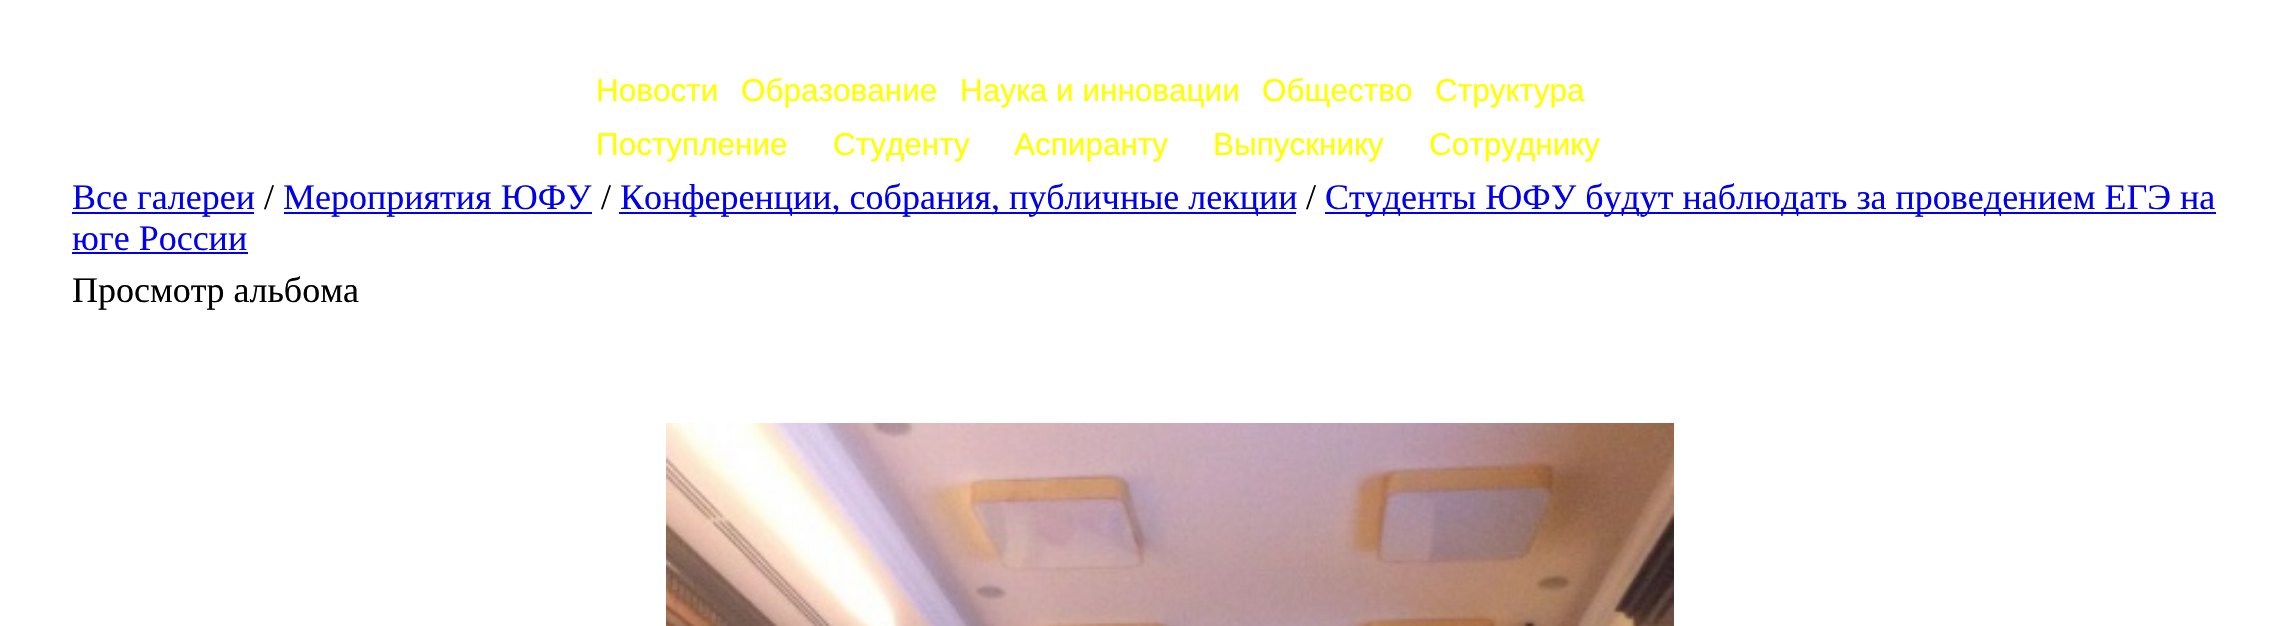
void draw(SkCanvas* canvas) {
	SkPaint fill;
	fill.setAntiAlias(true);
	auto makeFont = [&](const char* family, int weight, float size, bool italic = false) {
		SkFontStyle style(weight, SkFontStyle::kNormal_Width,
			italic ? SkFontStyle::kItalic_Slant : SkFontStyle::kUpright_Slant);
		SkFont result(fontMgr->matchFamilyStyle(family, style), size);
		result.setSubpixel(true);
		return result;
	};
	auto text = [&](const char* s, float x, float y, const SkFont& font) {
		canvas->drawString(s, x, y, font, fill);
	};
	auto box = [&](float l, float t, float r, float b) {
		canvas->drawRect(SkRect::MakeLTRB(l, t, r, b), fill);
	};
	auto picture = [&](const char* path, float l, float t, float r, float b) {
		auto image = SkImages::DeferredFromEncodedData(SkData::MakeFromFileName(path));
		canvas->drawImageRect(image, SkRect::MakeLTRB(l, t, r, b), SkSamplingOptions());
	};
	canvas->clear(0xFFFFFFFF);
	fill.setColor(0xFF0000EE);
	box(72, 212, 254, 214);
	box(284, 212, 592, 214);
	box(619, 212, 1296, 214);
	box(1325, 212, 2216, 214);
	box(72, 252, 248, 254);
	picture("image0.png", 666, 423, 1674, 626);
	auto font1 = makeFont("Liberation Sans", 400, 31.5f);
	fill.setColor(0xFFFFFF00);
	text("Новости", 596, 101, font1);
	text("Образование", 741, 101, font1);
	text("Наука и инновации", 960, 101, font1);
	text("Общество", 1262, 101, font1);
	text("Структура", 1435, 101, font1);
	text("Поступление", 596, 155, font1);
	text("Студенту", 833, 155, font1);
	text("Аспиранту", 1014, 155, font1);
	text("Выпускнику", 1213, 155, font1);
	text("Сотруднику", 1429, 155, font1);
	auto font2 = makeFont("Liberation Serif", 400, 36);
	fill.setColor(0xFF0000EE);
	text("Все галереи", 72, 209, font2);
	fill.setColor(0xFF000000);
	text("/", 264, 209, font2);
	fill.setColor(0xFF0000EE);
	text("Мероприятия ЮФУ", 283, 209, font2);
	fill.setColor(0xFF000000);
	text("/", 601, 209, font2);
	fill.setColor(0xFF0000EE);
	text("Конференции, собрания, публичные лекции", 620, 209, font2);
	fill.setColor(0xFF000000);
	text("/", 1306, 209, font2);
	fill.setColor(0xFF0000EE);
	text("Студенты ЮФУ будут наблюдать за проведением ЕГЭ на", 1325, 209, font2);
	text("юге России", 72, 250, font2);
	fill.setColor(0xFF000000);
	text("Просмотр альбома", 72, 302, font2);
}
